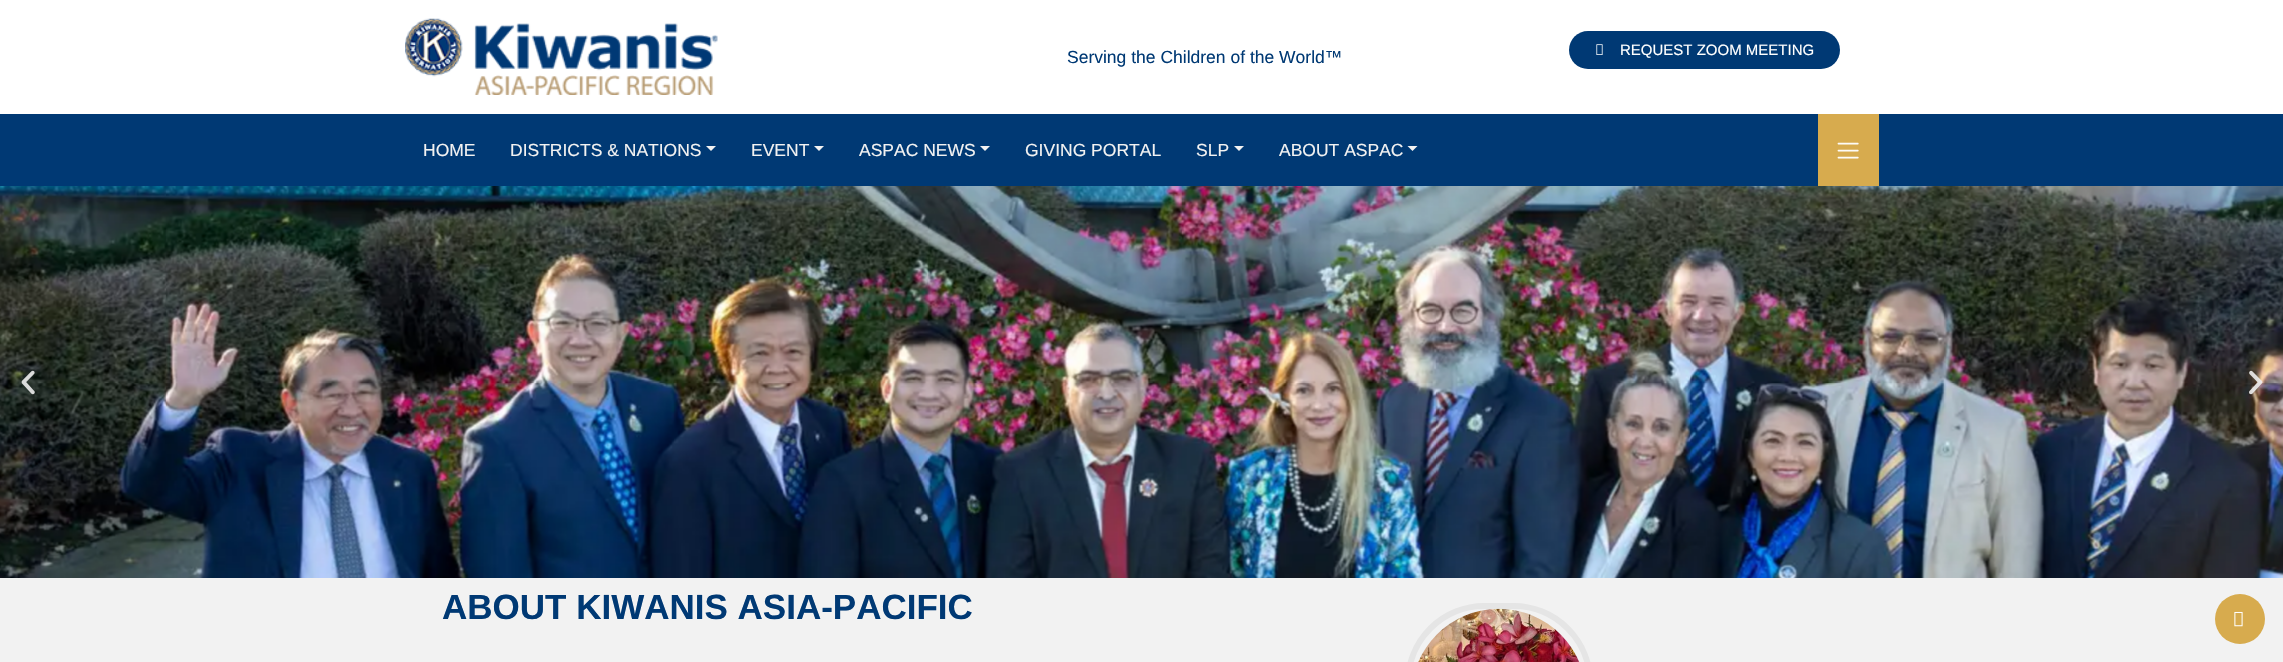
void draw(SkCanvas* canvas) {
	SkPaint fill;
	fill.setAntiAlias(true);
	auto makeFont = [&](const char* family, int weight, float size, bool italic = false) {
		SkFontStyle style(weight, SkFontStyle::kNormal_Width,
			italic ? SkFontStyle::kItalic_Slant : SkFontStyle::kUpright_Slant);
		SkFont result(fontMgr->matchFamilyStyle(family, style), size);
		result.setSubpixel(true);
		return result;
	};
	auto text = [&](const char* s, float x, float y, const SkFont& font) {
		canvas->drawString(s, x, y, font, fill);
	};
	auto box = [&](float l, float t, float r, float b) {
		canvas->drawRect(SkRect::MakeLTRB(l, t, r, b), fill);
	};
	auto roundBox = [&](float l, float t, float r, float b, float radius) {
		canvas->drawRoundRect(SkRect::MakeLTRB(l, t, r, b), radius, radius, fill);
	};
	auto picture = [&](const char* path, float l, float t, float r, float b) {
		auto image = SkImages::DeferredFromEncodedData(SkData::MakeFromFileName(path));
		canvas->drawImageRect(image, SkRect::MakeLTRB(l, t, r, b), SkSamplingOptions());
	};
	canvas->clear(0xFFFFFFFF);
	picture("image0.png", 405, 18, 718, 95);
	fill.setColor(0xFF003974);
	roundBox(1569, 31, 1840, 69, 19);
	picture("image1.png", 1596, 44, 1603, 55);
	box(0, 114, 2283, 186);
	fill.setColor(0xFFF2F2F2);
	canvas->drawPath(SkPathBuilder().moveTo(706, 146).lineTo(716, 146).lineTo(711, 151).close().detach(), fill);
	canvas->drawPath(SkPathBuilder().moveTo(814, 146).lineTo(824, 146).lineTo(819, 151).close().detach(), fill);
	canvas->drawPath(SkPathBuilder().moveTo(980, 146).lineTo(990, 146).lineTo(985, 151).close().detach(), fill);
	canvas->drawPath(SkPathBuilder().moveTo(1234, 146).lineTo(1244, 146).lineTo(1239, 151).close().detach(), fill);
	canvas->drawPath(SkPathBuilder().moveTo(1407.5f, 146).lineTo(1417.5f, 146).lineTo(1412.5f, 151).close().detach(), fill);
	fill.setColor(0xFFD7AB4E);
	box(1818, 114, 1879, 186);
	picture("image2.png", 1837, 142, 1859, 159);
	picture("image3.png", 0, 186, 2283, 578);
	picture("image4.png", 21, 370, 35, 395);
	picture("image5.png", 2249, 370, 2263, 395);
	fill.setColor(0xFFF2F2F2);
	box(0, 578, 2283, 662);
	fill.setStyle(SkPaint::kStroke_Style);
	fill.setStrokeWidth(6);
	fill.setColor(0xFFE5E5E5);
	canvas->drawRoundRect(SkRect::MakeLTRB(1408, 606, 1590, 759), 90.5f, 90.5f, fill);
	picture("image6.png", 1418, 608, 1580, 662);
	fill.setStyle(SkPaint::kFill_Style);
	fill.setColor(0xFFD7AB4E);
	canvas->drawCircle(2240, 619, 25, fill);
	picture("image7.png", 2234, 611, 2243, 627);
	auto font1 = makeFont("Liberation Sans", 400, 17.5f);
	fill.setColor(0xFF003974);
	text("Serving the Children of the World™", 1067, 63, font1);
	auto font2 = makeFont("Liberation Sans", 400, 15);
	fill.setColor(0xFFFFFFFF);
	text("REQUEST ZOOM MEETING", 1620, 55, font2);
	fill.setColor(0xFFF2F2F2);
	text("HOME", 423, 156, font1);
	text("DISTRICTS & NATIONS", 510, 156, font1);
	text("EVENT", 751, 156, font1);
	text("ASPAC NEWS", 859, 156, font1);
	text("GIVING PORTAL", 1025, 156, font1);
	text("SLP", 1196, 156, font1);
	text("ABOUT ASPAC", 1279, 156, font1);
	auto font3 = makeFont("Liberation Sans", 700, 35);
	fill.setColor(0xFF003974);
	text("ABOUT KIWANIS ASIA-PACIFIC", 442, 619, font3);
}
